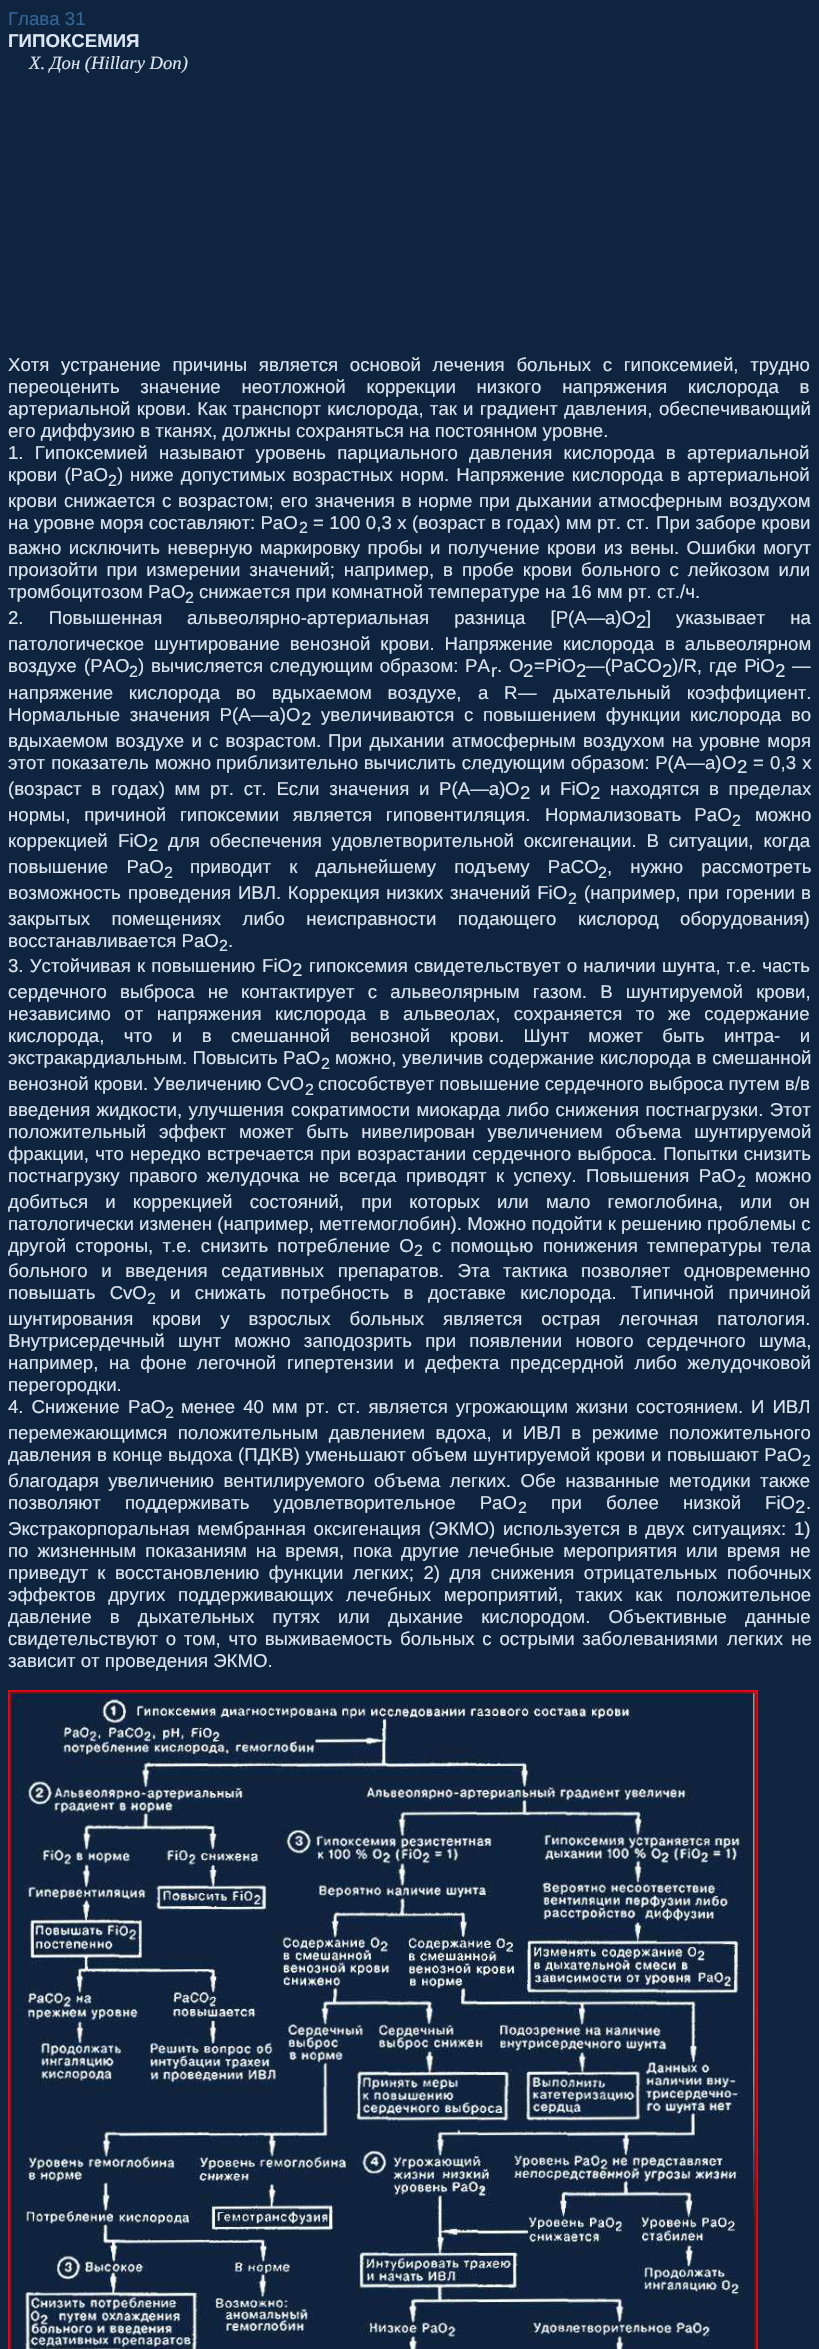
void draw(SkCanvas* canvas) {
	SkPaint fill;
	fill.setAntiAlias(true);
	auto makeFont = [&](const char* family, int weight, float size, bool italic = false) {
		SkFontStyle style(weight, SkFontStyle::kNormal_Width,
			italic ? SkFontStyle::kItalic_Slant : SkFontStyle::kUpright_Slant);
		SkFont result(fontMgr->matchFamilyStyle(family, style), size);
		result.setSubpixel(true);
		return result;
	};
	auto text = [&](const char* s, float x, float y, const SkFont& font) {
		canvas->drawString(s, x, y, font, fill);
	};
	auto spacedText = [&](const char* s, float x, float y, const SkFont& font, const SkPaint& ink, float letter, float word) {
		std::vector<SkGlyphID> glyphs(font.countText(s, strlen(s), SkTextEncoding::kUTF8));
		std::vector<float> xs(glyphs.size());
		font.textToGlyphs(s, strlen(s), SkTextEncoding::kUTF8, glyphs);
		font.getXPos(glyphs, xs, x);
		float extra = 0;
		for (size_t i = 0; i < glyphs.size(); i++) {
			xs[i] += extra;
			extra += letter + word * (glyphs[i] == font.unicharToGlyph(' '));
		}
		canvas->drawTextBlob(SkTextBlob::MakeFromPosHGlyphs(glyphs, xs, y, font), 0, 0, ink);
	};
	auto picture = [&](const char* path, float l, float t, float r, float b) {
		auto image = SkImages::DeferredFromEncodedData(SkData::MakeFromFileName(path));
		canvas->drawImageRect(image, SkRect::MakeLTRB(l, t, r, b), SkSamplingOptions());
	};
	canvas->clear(0xFF0F243E);
	picture("image0.png", 8, 1690, 758, 2349);
	auto font1 = makeFont("Liberation Sans", 400, 18.65f);
	fill.setColor(0xFF336699);
	text("Глава 31", 8, 25, font1);
	auto font2 = makeFont("Liberation Sans", 700, 18.65f);
	fill.setColor(0xFFDBE5F1);
	text("ГИПОКСЕМИЯ", 8, 47, font2);
	auto font3 = makeFont("Liberation Serif", 400, 18.65f, true);
	text("X. Дон (Hillary Don)", 29, 69, font3);
	text("Хотя", 8, 371, font1);
	spacedText("устранение причины является основой лечения больных с гипоксемией, трудно", 61, 371, font1, fill, 0, 6.5f);
	spacedText("переоценить значение неотложной коррекции низкого напряжения кислорода в", 8, 393, font1, fill, 0, 15.5f);
	spacedText("артериальной крови. Как транспорт кислорода, так и градиент давления,", 8, 415, font1, fill, 0, 1);
	text("обеспечивающий", 659, 415, font1);
	text("его диффузию в тканях, должны сохраняться на постоянном уровне.", 8, 437, font1);
	spacedText("1. Гипоксемией", 8, 459, font1, fill, 0, 6);
	spacedText("называют уровень парциального давления кислорода в артериальной", 159, 459, font1, fill, 0, 6);
	spacedText("крови (РаО", 8, 481, font1, fill, 0, 2);
	auto font4 = makeFont("Liberation Sans", 400, 16);
	text("2", 108, 486, font4);
	text(")", 117, 481, font1);
	spacedText("ниже допустимых возрастных норм. Напряжение кислорода в артериальной", 130, 481, font1, fill, 0, 2);
	text("крови", 8, 507, font1);
	spacedText("снижается с возрастом; его значения в норме при дыхании атмосферным воздухом", 64, 507, font1, fill, 0, 1.5f);
	text("на", 8, 529, font1);
	text("уровне моря составляют: РаО", 34, 529, font1);
	text("2", 299, 533, font4);
	spacedText("= 100 0,3 х (возраст в годах) мм рт. ст.", 313, 529, font1, fill, 0, 0.25f);
	text("При заборе крови", 656, 529, font1);
	spacedText("важно исключить неверную маркировку пробы и получение крови из", 8, 554, font1, fill, 0, 2.25f);
	spacedText("вены. Ошибки могут", 630, 554, font1, fill, 0, 2.25f);
	spacedText("произойти при измерении значений; например, в пробе крови", 8, 576, font1, fill, 0, 3.75f);
	spacedText("больного с лейкозом или", 581, 576, font1, fill, 0, 3.75f);
	text("тромбоцитозом РаО", 8, 598, font1);
	text("2", 185, 603, font4);
	text("снижается при комнатной температуре на 16 мм рт. ст./ч.", 199, 598, font1);
	spacedText("2. Повышенная", 8, 624, font1, fill, 0, 20);
	spacedText("альвеолярно-артериальная разница [Р(А—", 187, 624, font1, fill, 0, 20);
	text("a)O", 605, 624, font1);
	text("2", 636, 628, font1);
	text("]", 646, 624, font1);
	spacedText("указывает на", 676, 624, font1, fill, 0, 20);
	spacedText("патологическое шунтирование венозной крови. Напряжение кислорода", 8, 650, font1, fill, 0, 4.75f);
	spacedText("в альвеолярном", 665, 650, font1, fill, 0, 4.75f);
	spacedText("воздухе (РАО", 8, 672, font1, fill, 0, 2);
	text("2", 129, 677, font4);
	spacedText(") вычисляется следующим образом: РА", 138, 672, font1, fill, 0, 1.5f);
	text("r", 491, 677, font1);
	text("O", 509, 672, font1);
	text("2", 523, 677, font1);
	text("=PiO", 534, 672, font1);
	text("2", 576, 677, font1);
	text("—(PaCO", 586, 672, font1);
	text("2", 662, 677, font1);
	text(")/R,", 672, 672, font1);
	spacedText("где Р", 709, 672, font1, fill, 0, 2);
	text("iO", 756, 672, font1);
	text("2", 775, 677, font1);
	text("—", 792, 672, font1);
	text(".", 497, 672, font1);
	spacedText("напряжение кислорода во вдыхаемом воздухе,", 8, 699, font1, fill, 0, 10.5f);
	spacedText("a R", 478, 699, font1, fill, 0, 10.5f);
	text("—", 518, 699, font1);
	spacedText("дыхательный коэффициент.", 553, 699, font1, fill, 0, 11);
	spacedText("Нормальные значения Р(А—а)", 8, 721, font1, fill, 0, 4.5f);
	text("O", 286, 721, font1);
	text("2", 301, 725, font1);
	spacedText("увеличиваются с повышением функции кислорода во", 321, 721, font1, fill, 0, 4.5f);
	spacedText("вдыхаемом воздухе и с возрастом.", 8, 747, font1, fill, 0, 2);
	spacedText("При дыхании атмосферным воздухом на уровне моря", 328, 747, font1, fill, 0, 2);
	spacedText("этот показатель можно", 8, 769, font1, fill, 0, 1);
	spacedText("приблизительно вычислить следующим образом: Р(А—а)", 216, 769, font1, fill, 0, 0.5f);
	text("O", 722, 769, font1);
	text("2", 737, 773, font1);
	spacedText("= 0,3 х", 753, 769, font1, fill, 0, 1);
	spacedText("(возраст в годах) мм рт. ст. Если значения и Р(А—а)", 8, 795, font1, fill, 0, 4.5f);
	text("O", 505, 795, font1);
	text("2", 520, 799, font1);
	text("и", 540, 795, font1);
	text("FiO", 560, 795, font1);
	text("2", 590, 799, font1);
	spacedText("находятся в пределах", 610, 795, font1, fill, 0, 4.5f);
	spacedText("нормы, причиной гипоксемии является гиповентиляция.", 8, 821, font1, fill, 0, 8.5f);
	spacedText("Нормализовать РаО", 545, 821, font1, fill, 0, 8);
	text("2", 732, 826, font4);
	text("можно", 755, 821, font1);
	text("коррекцией", 8, 847, font1);
	text("FiO", 118, 847, font1);
	text("2", 148, 851, font1);
	spacedText("для обеспечения удовлетворительной оксигенации. В ситуации, когда", 168, 847, font1, fill, 0, 4.75f);
	spacedText("повышение РаО", 8, 873, font1, fill, 0, 13);
	text("2", 164, 878, font4);
	spacedText("приводит к дальнейшему подъему РаСО", 190, 873, font1, fill, 0, 13);
	text("2", 598, 878, font4);
	spacedText(", нужно рассмотреть", 607, 873, font1, fill, 0, 13);
	text("возможность", 8, 899, font1);
	spacedText("проведения ИВЛ. Коррекция низких значений FiO", 128, 899, font1, fill, 0, 1.5f);
	text("2", 568, 904, font4);
	spacedText("(например, при горении", 584, 899, font1, fill, 0, 2);
	text("в", 801, 899, font1);
	spacedText("закрытых помещениях либо неисправности подающего кислород оборудования)", 8, 925, font1, fill, 0, 16.25f);
	text("восстанавливается РаО", 8, 947, font1);
	text("2", 219, 951, font4);
	text(".", 228, 947, font1);
	spacedText("3. Устойчивая", 8, 972, font1, fill, 0, 1);
	spacedText("к повышению", 137, 972, font1, fill, 0, 1);
	text("FiO", 262, 972, font1);
	text("2", 292, 976, font1);
	spacedText("гипоксемия свидетельствует о наличии шунта, т.е. часть", 309, 972, font1, fill, 0, 1);
	spacedText("сердечного выброса не", 8, 998, font1, fill, 0, 8);
	spacedText("контактирует с альвеолярным газом. В шунтируемой крови,", 241, 998, font1, fill, 0, 8);
	spacedText("независимо от напряжения", 8, 1020, font1, fill, 0, 8.25f);
	spacedText("кислорода в альвеолах, сохраняется то же содержание", 275, 1020, font1, fill, 0, 8.25f);
	spacedText("кислорода, что и в", 8, 1042, font1, fill, 0, 14.25f);
	spacedText("смешанной венозной крови. Шунт может быть интра- и", 231, 1042, font1, fill, 0, 14.25f);
	spacedText("экстракардиальным. Повысить", 8, 1064, font1, fill, 0, 0.25f);
	text("РаО", 283, 1064, font1);
	text("2", 321, 1069, font4);
	spacedText("можно, увеличив содержание кислорода в смешанной", 335, 1064, font1, fill, 0, 0.5f);
	text("венозной крови. Увеличению СvО", 8, 1090, font1);
	text("2", 305, 1095, font4);
	text("способствует повышение сердечного выброса путем в/в", 318, 1090, font1);
	spacedText("введения жидкости, улучшения", 8, 1116, font1, fill, 0, 1);
	spacedText("сократимости миокарда либо снижения постнагрузки. Этот", 291, 1116, font1, fill, 0, 1.25f);
	spacedText("положительный эффект", 8, 1138, font1, fill, 0, 7.5f);
	spacedText("может быть нивелирован увеличением объема шунтируемой", 239, 1138, font1, fill, 0, 7.5f);
	spacedText("фракции, что нередко", 8, 1160, font1, fill, 0, 1);
	spacedText("встречается при возрастании сердечного выброса. Попытки снизить", 207, 1160, font1, fill, 0, 1);
	text("постнагрузку", 8, 1182, font1);
	spacedText("правого желудочка не всегда приводят к успеху. Повышения РаО", 129, 1182, font1, fill, 0, 4.25f);
	text("2", 737, 1187, font4);
	text("можно", 755, 1182, font1);
	spacedText("добиться и коррекцией состояний, при которых или мало гемоглобина, или он", 8, 1208, font1, fill, 0, 12);
	text("патологически изменен (например, метгемоглобин). Можно подойти к решению проблемы с", 8, 1230, font1);
	spacedText("другой стороны, т.е. снизить потребление О", 8, 1252, font1, fill, 0, 4);
	text("2", 414, 1256, font4);
	spacedText("с помощью", 432, 1252, font1, fill, 0, 4);
	spacedText("понижения температуры тела", 543, 1252, font1, fill, 0, 4);
	spacedText("больного и введения седативных препаратов. Эта", 8, 1277, font1, fill, 0, 8.5f);
	spacedText("тактика позволяет одновременно", 503, 1277, font1, fill, 0, 8.25f);
	spacedText("повышать С", 8, 1299, font1, fill, 0, 9.25f);
	text("vО", 123, 1299, font1);
	text("2", 147, 1304, font4);
	spacedText("и снижать потребность в доставке кислорода. Типичной причиной", 170, 1299, font1, fill, 0, 9.25f);
	text("шунтирования", 8, 1325, font1);
	spacedText("крови у взрослых больных является острая легочная патология.", 152, 1325, font1, fill, 0, 13.75f);
	text("Внутрисердечный", 8, 1347, font1);
	spacedText("шунт можно заподозрить при появлении нового сердечного шума,", 178, 1347, font1, fill, 0, 8);
	spacedText("например, на фоне", 8, 1369, font1, fill, 0, 5.5f);
	spacedText("легочной гипертензии и дефекта предсердной либо желудочковой", 197, 1369, font1, fill, 0, 5.5f);
	text("перегородки.", 8, 1391, font1);
	spacedText("4. Снижение", 8, 1413, font1, fill, 0, 2.75f);
	text("РаО", 128, 1413, font1);
	text("2", 165, 1418, font4);
	spacedText("менее 40 мм рт. ст. является угрожающим жизни состоянием. И ИВЛ", 181, 1413, font1, fill, 0, 2.75f);
	spacedText("перемежающимся положительным давлением вдоха, и ИВЛ в режиме положительного", 8, 1439, font1, fill, 0, 5.25f);
	spacedText("давления в конце выдоха (ПДКВ) уменьшают объем шунтируемой крови и повышают РаО", 8, 1461, font1, fill, 0, 0.5f);
	text("2", 802, 1466, font4);
	spacedText("благодаря увеличению вентилируемого объема легких. Обе названные методики также", 8, 1487, font1, fill, 0, 4.25f);
	spacedText("позволяют поддерживать удовлетворительное РаО", 8, 1509, font1, fill, 0, 19);
	text("2", 518, 1513, font4);
	spacedText("при более низкой", 551, 1509, font1, fill, 0, 19);
	text("FiO", 765, 1509, font1);
	text("2", 795, 1513, font1);
	text(".", 806, 1509, font1);
	spacedText("Экстракорпоральная мембранная оксигенация (ЭКМО) используется в двух ситуациях:", 8, 1535, font1, fill, 0, 2.5f);
	text("1)", 794, 1535, font1);
	spacedText("по жизненным показаниям на время, пока другие лечебные мероприятия или время", 8, 1557, font1, fill, 0, 3.75f);
	text("не", 790, 1557, font1);
	spacedText("приведут к восстановлению функции легких; 2) для снижения отрицательных", 8, 1579, font1, fill, 0, 4.25f);
	text("побочных", 727, 1579, font1);
	spacedText("эффектов других поддерживающих лечебных мероприятий, таких как", 8, 1601, font1, fill, 0, 7.5f);
	text("положительное", 676, 1601, font1);
	spacedText("давление в дыхательных путях или дыхание кислородом. Объективные", 8, 1623, font1, fill, 0, 13);
	text("данные", 745, 1623, font1);
	spacedText("свидетельствуют о том, что выживаемость больных с острыми заболеваниями", 8, 1645, font1, fill, 0, 2.5f);
	spacedText("легких не", 727, 1645, font1, fill, 0, 3);
	text("зависит от проведения ЭКМО.", 8, 1667, font1);
}
